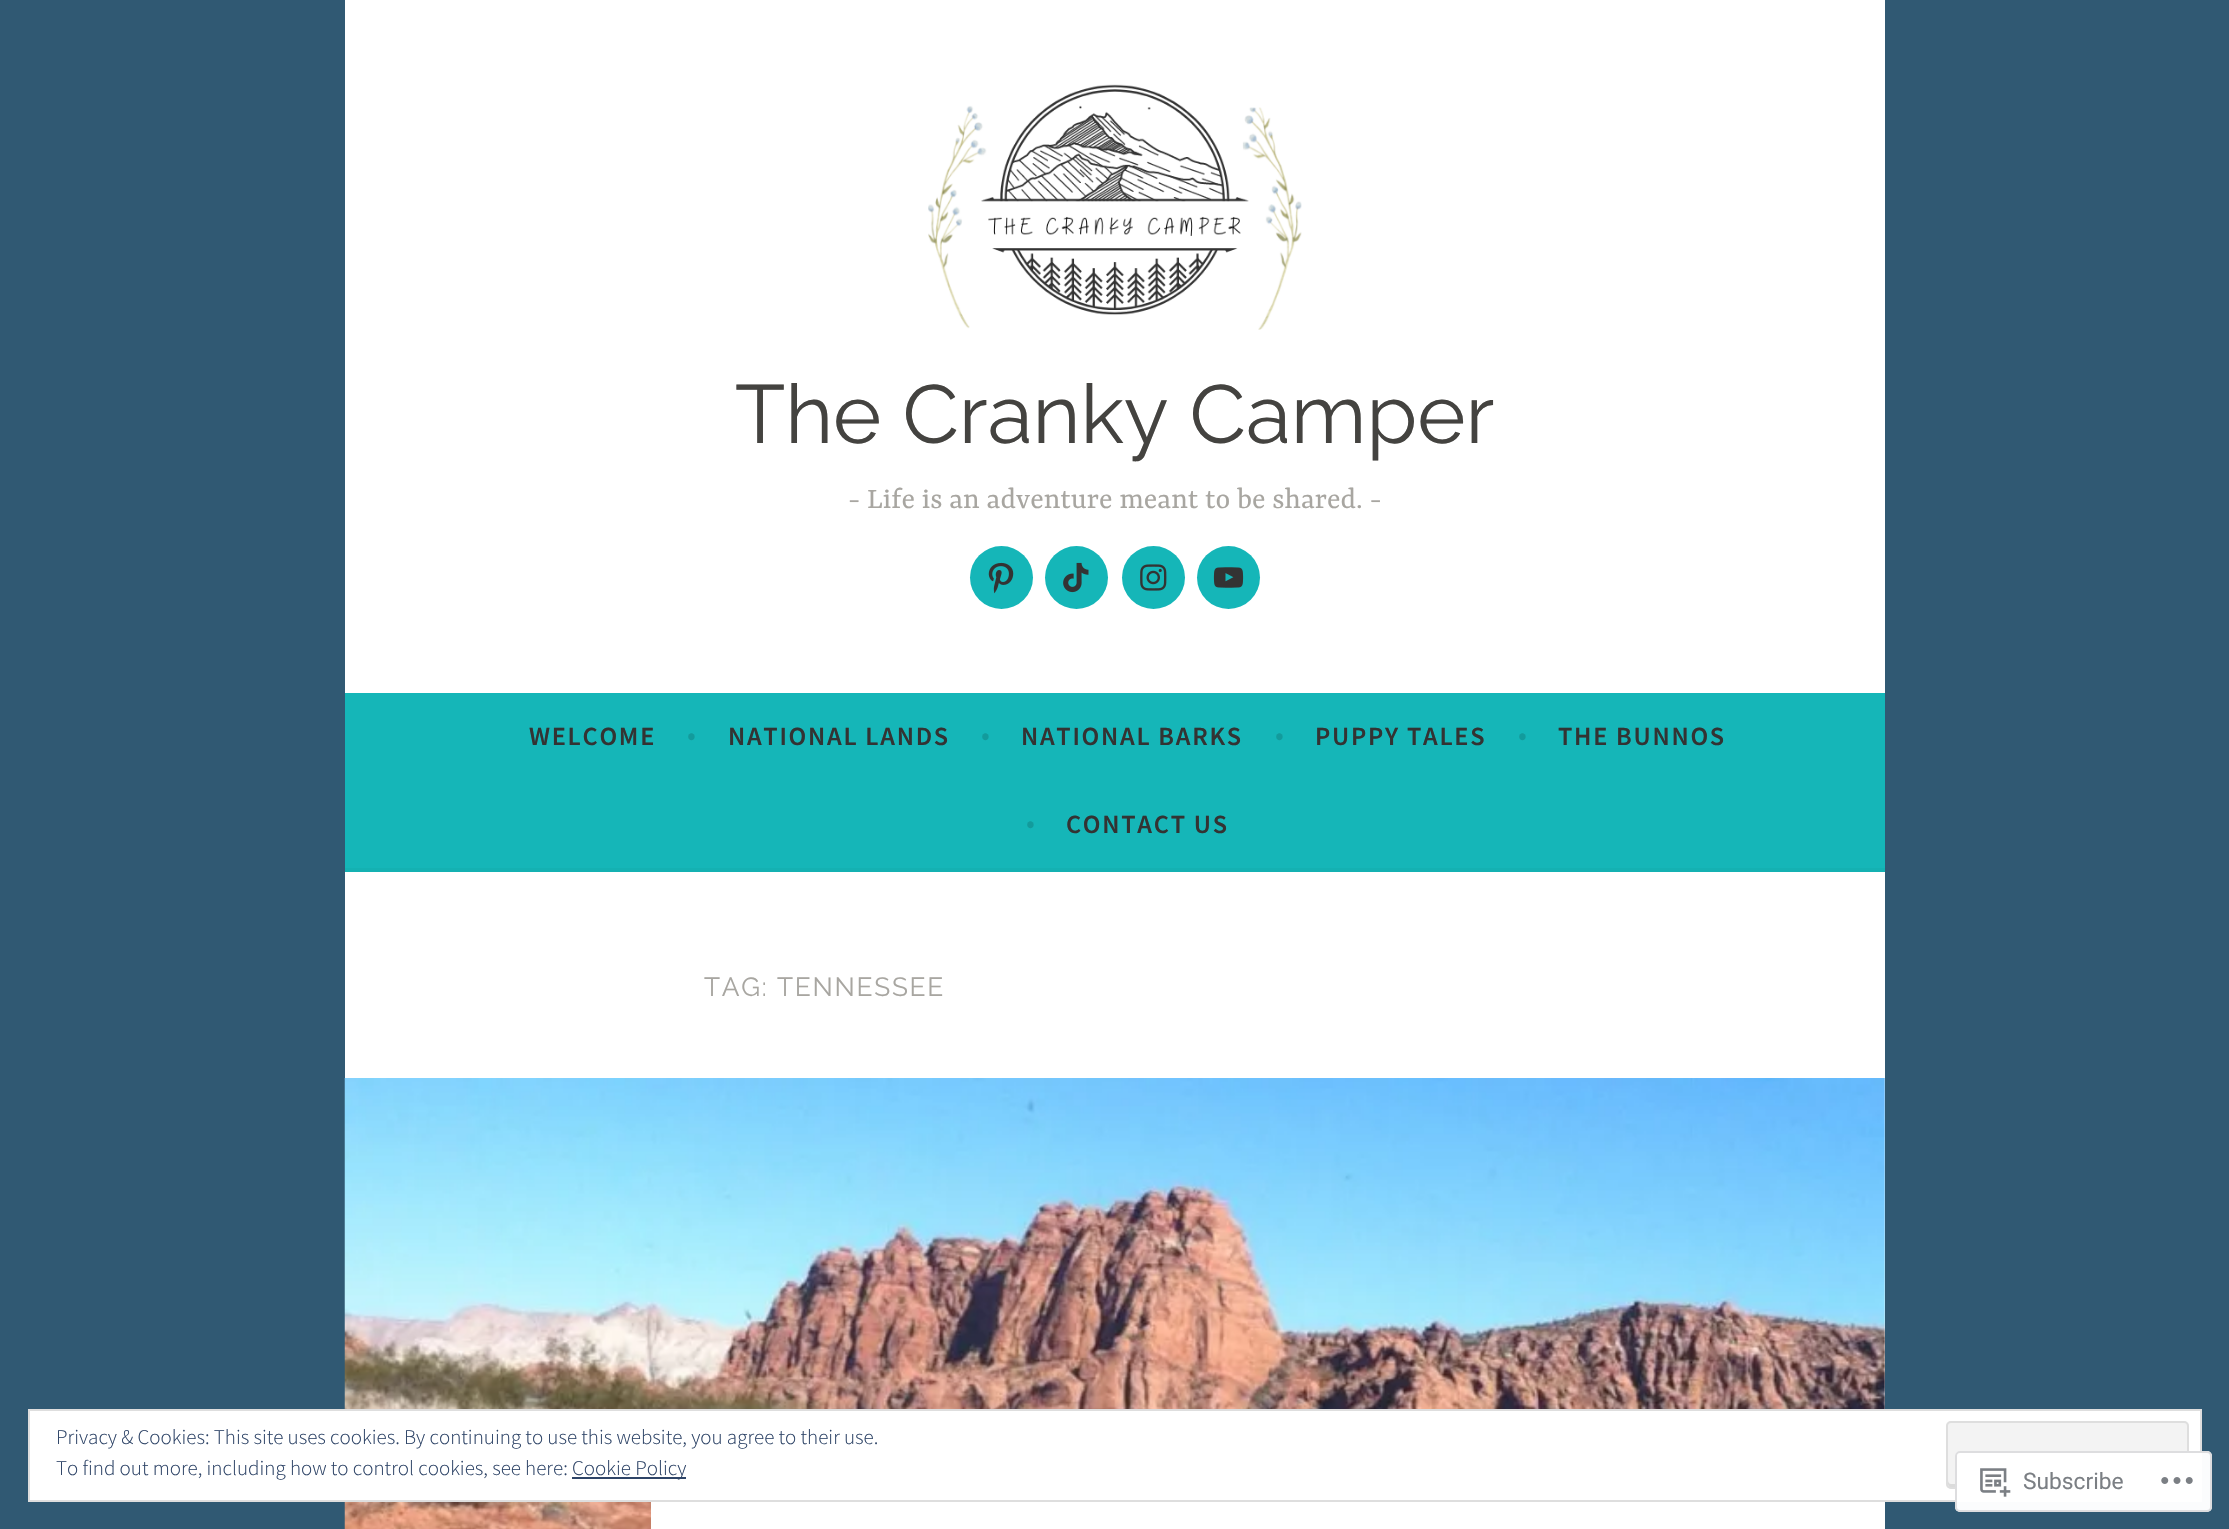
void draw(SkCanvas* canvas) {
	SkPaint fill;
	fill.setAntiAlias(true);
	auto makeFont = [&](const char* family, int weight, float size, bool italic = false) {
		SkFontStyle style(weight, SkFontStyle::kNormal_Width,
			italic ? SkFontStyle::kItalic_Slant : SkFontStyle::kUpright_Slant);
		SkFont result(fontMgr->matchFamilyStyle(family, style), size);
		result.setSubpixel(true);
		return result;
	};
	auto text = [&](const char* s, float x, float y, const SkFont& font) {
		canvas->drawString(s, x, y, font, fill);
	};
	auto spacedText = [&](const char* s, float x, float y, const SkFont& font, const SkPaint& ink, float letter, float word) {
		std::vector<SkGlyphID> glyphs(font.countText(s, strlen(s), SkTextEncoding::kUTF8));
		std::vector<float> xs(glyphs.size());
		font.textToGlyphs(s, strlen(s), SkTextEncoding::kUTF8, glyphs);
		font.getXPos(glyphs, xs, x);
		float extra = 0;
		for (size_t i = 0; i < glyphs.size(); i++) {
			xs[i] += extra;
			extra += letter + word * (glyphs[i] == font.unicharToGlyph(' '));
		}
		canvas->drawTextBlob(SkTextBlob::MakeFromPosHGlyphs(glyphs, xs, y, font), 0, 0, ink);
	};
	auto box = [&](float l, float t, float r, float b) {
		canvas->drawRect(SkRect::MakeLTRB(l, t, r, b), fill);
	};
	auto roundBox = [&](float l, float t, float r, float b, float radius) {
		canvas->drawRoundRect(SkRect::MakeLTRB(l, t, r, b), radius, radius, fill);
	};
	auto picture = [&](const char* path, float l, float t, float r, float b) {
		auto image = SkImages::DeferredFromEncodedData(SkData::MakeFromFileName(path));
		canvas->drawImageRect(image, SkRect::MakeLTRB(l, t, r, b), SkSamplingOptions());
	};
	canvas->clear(0xFF305973);
	fill.setColor(0xFFFFFFFF);
	box(345, 0, 1885, 693);
	picture("image0.png", 928, 84, 1302, 330);
	fill.setColor(0xFF15B6B8);
	canvas->drawCircle(1001.5f, 577.5f, 31.5f, fill);
	picture("image1.png", 988, 562, 1014, 594);
	canvas->drawCircle(1076.5f, 577.5f, 31.5f, fill);
	picture("image2.png", 1063, 562, 1089, 593);
	canvas->drawCircle(1153.5f, 577.5f, 31.5f, fill);
	picture("image3.png", 1140, 564, 1167, 591);
	canvas->drawCircle(1228.5f, 577.5f, 31.5f, fill);
	picture("image4.png", 1213, 567, 1244, 588);
	box(345, 693, 1885, 868);
	fill.setColor(0xFF14B1B2);
	box(345, 868, 1885, 872);
	fill.setColor(0xFFFFFFFF);
	box(345, 872, 1885, 1409);
	picture("image5.png", 344, 1078, 1885, 1529);
	box(651, 1502, 1885, 1529);
	canvas->drawRect(SkRect::MakeLTRB(29, 1410, 2201, 1501), fill);
	fill.setStyle(SkPaint::kStroke_Style);
	fill.setStrokeWidth(2);
	fill.setColor(0xFFDEDEDE);
	canvas->drawRect(SkRect::MakeLTRB(29, 1410, 2201, 1501), fill);
	fill.setStyle(SkPaint::kFill_Style);
	fill.setColor(0xFFF3F3F3);
	roundBox(1946, 1421, 2189, 1489, 5);
	fill.setColor(0xFFDBDBDB);
	canvas->drawPath(SkPathBuilder().moveTo(1948, 1480).lineTo(1948, 1484).cubicTo(1948, 1486, 1950, 1488, 1952, 1488).lineTo(2184, 1488).cubicTo(2186, 1488, 2188, 1486, 2188, 1484).lineTo(2188, 1480).cubicTo(2188, 1482, 2186, 1484, 2184, 1484).lineTo(1951, 1484).cubicTo(1949, 1484, 1948, 1482, 1948, 1480).close().detach(), fill);
	fill.setStyle(SkPaint::kStroke_Style);
	fill.setColor(0xFFDEDEDE);
	canvas->drawRoundRect(SkRect::MakeLTRB(1947, 1422, 2188, 1488), 4, 4, fill);
	fill.setStyle(SkPaint::kFill_Style);
	fill.setColor(0xFF2E4467);
	box(572, 1477, 686, 1479);
	fill.setColor(0xFAFFFFFF);
	roundBox(1955, 1451, 2212, 1512, 5);
	fill.setStyle(SkPaint::kStroke_Style);
	fill.setColor(0xFADCDCDE);
	canvas->drawRoundRect(SkRect::MakeLTRB(1956, 1452, 2211, 1511), 4, 4, fill);
	picture("image6.png", 1980, 1468, 2011, 1497);
	picture("image7.png", 2161, 1477, 2193, 1484);
	auto font1 = makeFont("Raleway", 100, 82.25f);
	fill.setStyle(SkPaint::kFill_Style);
	fill.setColor(0xFF444340);
	text("The Cranky Camper", 735, 443, font1);
	auto font2 = makeFont("Yrsa", 400, 31.5f);
	fill.setColor(0xFFA8A6A1);
	text("- Life is an adventure meant to be shared. -", 848, 508, font2);
	auto font3 = makeFont("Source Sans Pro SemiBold", 600, 26.25f);
	fill.setColor(0xFF333333);
	spacedText("WELCOME", 529, 745, font3, fill, 1.75f, 0);
	auto font4 = makeFont("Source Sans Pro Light", 300, 31.5f);
	fill.setColor(0xFF129B9C);
	text("•", 687, 745, font4);
	fill.setColor(0xFF333333);
	spacedText("NATIONAL LANDS", 728, 745, font3, fill, 1.75f, 0);
	fill.setColor(0xFF129B9C);
	text("•", 981, 745, font4);
	fill.setColor(0xFF333333);
	spacedText("NATIONAL BARKS", 1021, 745, font3, fill, 1.75f, 0);
	fill.setColor(0xFF129B9C);
	text("•", 1275, 745, font4);
	fill.setColor(0xFF333333);
	spacedText("PUPPY TALES", 1315, 745, font3, fill, 1.75f, 0);
	fill.setColor(0xFF129B9C);
	text("•", 1518, 745, font4);
	fill.setColor(0xFF333333);
	spacedText("THE BUNNOS", 1558, 745, font3, fill, 1.75f, 0);
	fill.setColor(0xFF129B9C);
	text("•", 1026, 833, font4);
	fill.setColor(0xFF333333);
	spacedText("CONTACT US", 1066, 833, font3, fill, 1.75f, 0);
	auto font5 = makeFont("Raleway", 100, 26.25f);
	fill.setColor(0xFFA8A6A1);
	spacedText("TAG: TENNESSEE", 704, 996, font5, fill, 1.75f, 0);
	auto font6 = makeFont("Source Sans Pro Light", 300, 21);
	fill.setColor(0xFF2E4467);
	text("Privacy & Cookies: This site uses cookies. By continuing to use this website, you agree to their use.", 56, 1444, font6);
	text("To find out more, including how to control cookies, see here:", 56, 1475, font6);
	text("Cookie Policy", 572, 1475, font6);
	auto font7 = makeFont("Roboto", 400, 22.75f);
	fill.setColor(0xFF7B7F84);
	text("Subscribe", 2023, 1489, font7);
}
